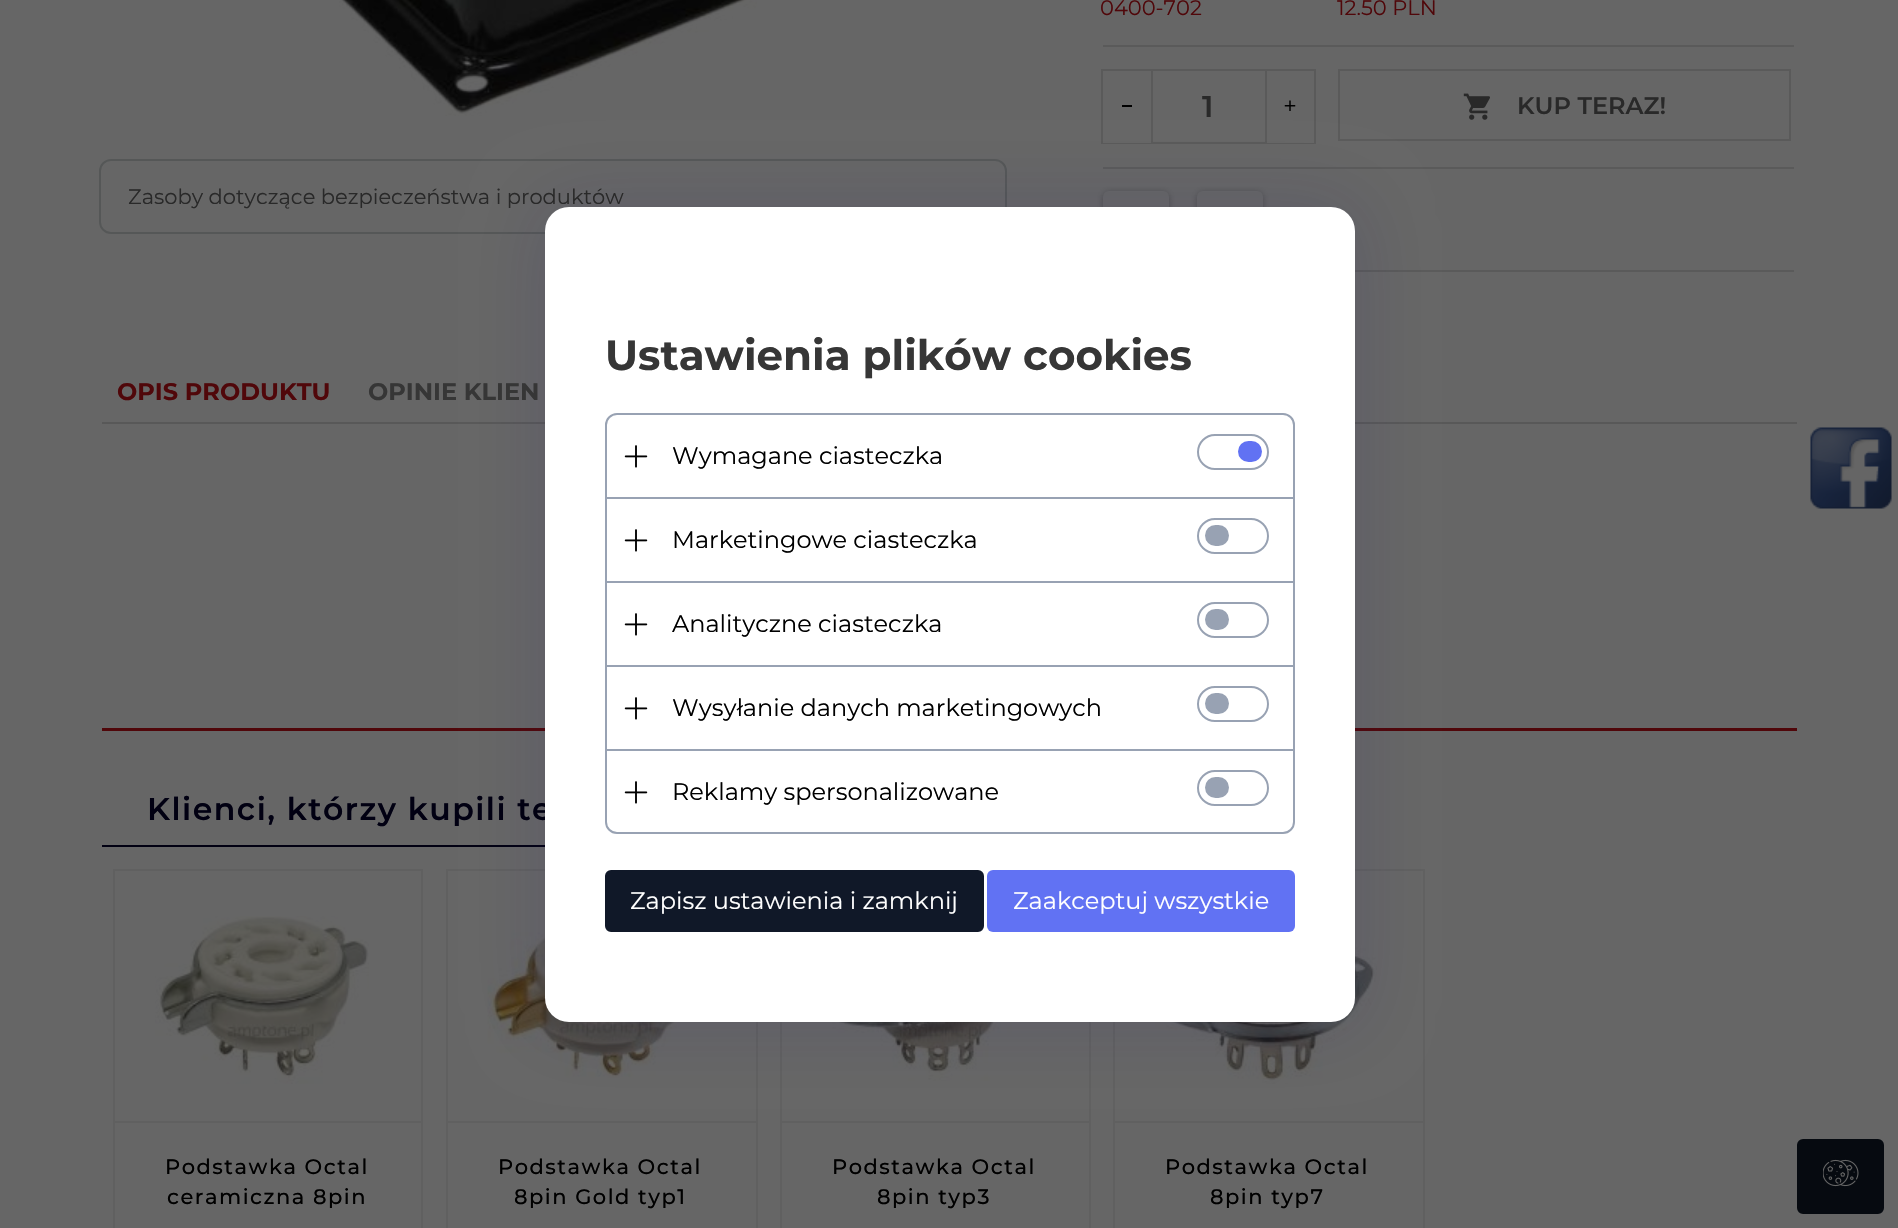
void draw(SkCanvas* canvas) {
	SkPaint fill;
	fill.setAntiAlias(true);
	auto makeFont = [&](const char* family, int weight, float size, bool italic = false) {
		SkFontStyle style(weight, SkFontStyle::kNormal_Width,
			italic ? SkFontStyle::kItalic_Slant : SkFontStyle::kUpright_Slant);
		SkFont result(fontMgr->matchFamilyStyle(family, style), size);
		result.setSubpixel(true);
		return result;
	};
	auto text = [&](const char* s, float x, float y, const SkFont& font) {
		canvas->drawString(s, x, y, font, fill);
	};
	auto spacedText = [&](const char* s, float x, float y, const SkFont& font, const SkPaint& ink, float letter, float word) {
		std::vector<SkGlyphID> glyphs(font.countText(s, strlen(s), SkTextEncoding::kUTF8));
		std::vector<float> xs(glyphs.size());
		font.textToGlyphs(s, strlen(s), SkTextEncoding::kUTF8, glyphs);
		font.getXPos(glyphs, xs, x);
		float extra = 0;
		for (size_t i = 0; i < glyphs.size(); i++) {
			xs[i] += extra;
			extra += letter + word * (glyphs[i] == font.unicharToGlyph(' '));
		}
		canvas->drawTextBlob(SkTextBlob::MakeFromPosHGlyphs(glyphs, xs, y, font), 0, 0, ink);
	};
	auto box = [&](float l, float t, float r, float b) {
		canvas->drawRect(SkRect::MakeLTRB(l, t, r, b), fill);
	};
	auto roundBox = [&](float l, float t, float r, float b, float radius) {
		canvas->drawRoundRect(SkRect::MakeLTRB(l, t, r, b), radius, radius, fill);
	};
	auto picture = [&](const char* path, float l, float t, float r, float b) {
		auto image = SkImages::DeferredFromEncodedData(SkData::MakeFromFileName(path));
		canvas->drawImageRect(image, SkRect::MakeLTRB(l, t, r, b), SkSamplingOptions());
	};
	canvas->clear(0xFF666666);
	fill.setColor(0xFF5A5A5A);
	box(1103, 45, 1794, 47);
	box(1103, 167, 1794, 169);
	fill.setStyle(SkPaint::kStroke_Style);
	fill.setStrokeWidth(2);
	canvas->drawRect(SkRect::MakeLTRB(1102, 70, 1315, 143), fill);
	fill.setStyle(SkPaint::kFill_Style);
	fill.setColor(0xFF666666);
	box(1103, 142, 1151, 143);
	fill.setColor(0xFF5A5A5A);
	box(1151, 71, 1153, 143);
	fill.setColor(0xFF000000);
	box(1122, 105, 1132, 107);
	fill.setColor(0xFF666666);
	box(1267, 142, 1314, 143);
	fill.setColor(0xFF5A5A5A);
	box(1265, 71, 1267, 143);
	picture("image0.png", 1284, 100, 1296, 111);
	fill.setStyle(SkPaint::kStroke_Style);
	canvas->drawRect(SkRect::MakeLTRB(1339, 70, 1790, 140), fill);
	picture("image1.png", 1463, 93, 1490, 120);
	fill.setStyle(SkPaint::kFill_Style);
	box(1355, 270, 1794, 272);
	fill.setColor(0x40000000);
	fill.setMaskFilter(SkMaskFilter::MakeBlur(kNormal_SkBlurStyle, 3));
	canvas->drawRoundRect(SkRect::MakeLTRB(1103, 192, 1169, 249), 6, 6, fill);
	fill.setMaskFilter(nullptr);
	fill.setColor(0xFF666666);
	roundBox(1103, 191, 1169, 248, 6);
	fill.setColor(0x40000000);
	fill.setMaskFilter(SkMaskFilter::MakeBlur(kNormal_SkBlurStyle, 3));
	canvas->drawRoundRect(SkRect::MakeLTRB(1197, 192, 1263, 249), 6, 6, fill);
	fill.setMaskFilter(nullptr);
	fill.setColor(0xFF666666);
	roundBox(1197, 191, 1263, 248, 6);
	picture("image2.png", 339, 0, 757, 116);
	fill.setStyle(SkPaint::kStroke_Style);
	fill.setColor(0xFF555757);
	canvas->drawRoundRect(SkRect::MakeLTRB(100, 160, 1006, 233), 11, 11, fill);
	fill.setStyle(SkPaint::kFill_Style);
	fill.setColor(0xFF585858);
	box(102, 422, 1797, 424);
	fill.setColor(0xFF50070A);
	box(102, 728, 1797, 731);
	fill.setColor(0xFF010012);
	box(102, 845, 545, 847);
	fill.setStyle(SkPaint::kStroke_Style);
	fill.setColor(0xFF606060);
	canvas->drawRect(SkRect::MakeLTRB(114, 870, 422, 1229), fill);
	picture("image3.png", 155, 916, 369, 1084);
	fill.setStyle(SkPaint::kFill_Style);
	box(114, 1121, 422, 1123);
	fill.setStyle(SkPaint::kStroke_Style);
	canvas->drawRect(SkRect::MakeLTRB(447, 870, 757, 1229), fill);
	picture("image4.png", 487, 910, 713, 1078);
	fill.setStyle(SkPaint::kFill_Style);
	box(447, 1121, 756, 1123);
	fill.setStyle(SkPaint::kStroke_Style);
	canvas->drawRect(SkRect::MakeLTRB(781, 870, 1090, 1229), fill);
	picture("image5.png", 821, 1022, 1045, 1081);
	fill.setStyle(SkPaint::kFill_Style);
	box(782, 1121, 1089, 1123);
	fill.setStyle(SkPaint::kStroke_Style);
	canvas->drawRect(SkRect::MakeLTRB(1114, 870, 1424, 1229), fill);
	picture("image6.png", 1155, 924, 1377, 1084);
	fill.setStyle(SkPaint::kFill_Style);
	box(1115, 1121, 1424, 1123);
	fill.setColor(0x26211A69);
	fill.setMaskFilter(SkMaskFilter::MakeBlur(kNormal_SkBlurStyle, 36));
	canvas->drawRoundRect(SkRect::MakeLTRB(545, 207, 1355, 1022), 24, 24, fill);
	fill.setMaskFilter(nullptr);
	fill.setColor(0xFF060A10);
	canvas->drawRoundRect(SkRect::MakeLTRB(1798, 1140, 1883, 1213), 5, 5, fill);
	fill.setStyle(SkPaint::kStroke_Style);
	canvas->drawRoundRect(SkRect::MakeLTRB(1798, 1140, 1883, 1213), 5, 5, fill);
	picture("image8.png", 1823, 1159, 1859, 1187);
	picture("image9.png", 1810, 427, 1892, 509);
	auto font1 = makeFont("Montserrat", 400, 21);
	fill.setStyle(SkPaint::kFill_Style);
	fill.setColor(0xFF50070A);
	text("0400-702", 1100, 15, font1);
	text("12.50 PLN", 1337, 15, font1);
	auto font2 = makeFont("Montserrat", 600, 30);
	fill.setColor(0xFF292929);
	text("1", 1202, 117, font2);
	auto font3 = makeFont("Montserrat", 600, 24);
	text("KUP TERAZ!", 1517, 114, font3);
	text("Zasoby dotyczące bezpieczeństwa i produktów", 128, 204, font1);
	auto font4 = makeFont("Montserrat", 700, 24);
	fill.setColor(0xFF50070A);
	text("OPIS PRODUKTU", 117, 400, font4);
	fill.setColor(0xFF363636);
	text("OPINIE KLIEN", 368, 400, font4);
	auto font5 = makeFont("Montserrat", 600, 31.5f);
	fill.setColor(0xFF010012);
	spacedText("Klienci, którzy kupili te", 147, 820, font5, fill, 1.5f, 0);
	auto font6 = makeFont("Montserrat", 500, 21);
	fill.setColor(0xFF000000);
	spacedText("Podstawka Octal", 165, 1174, font6, fill, 1.5f, 0);
	spacedText("ceramiczna 8pin", 167, 1204, font6, fill, 1.5f, 0);
	spacedText("Podstawka Octal", 498, 1174, font6, fill, 1.5f, 0);
	spacedText("8pin Gold typ1", 514, 1204, font6, fill, 1.5f, 0);
	spacedText("Podstawka Octal", 832, 1174, font6, fill, 1.5f, 0);
	spacedText("8pin typ3", 877, 1204, font6, fill, 1.5f, 0);
	spacedText("Podstawka Octal", 1165, 1174, font6, fill, 1.5f, 0);
	spacedText("8pin typ7", 1210, 1204, font6, fill, 1.5f, 0);
	fill.setColor(0xFFFFFFFF);
	roundBox(545, 207, 1355, 1022, 24);
	auto font7 = makeFont("Montserrat", 700, 42);
	fill.setColor(0xFF363636);
	text("Ustawienia plików cookies", 605, 370, font7);
	fill.setStyle(SkPaint::kStroke_Style);
	fill.setColor(0xFF98A2B3);
	canvas->drawRoundRect(SkRect::MakeLTRB(606, 414, 1294, 833), 11, 11, fill);
	picture("image7.png", 624, 445, 648, 468);
	auto font8 = makeFont("Montserrat", 400, 24);
	fill.setStyle(SkPaint::kFill_Style);
	fill.setColor(0xFF000000);
	text("Wymagane ciasteczka", 672, 464, font8);
	fill.setStyle(SkPaint::kStroke_Style);
	fill.setColor(0xFF98A2B3);
	canvas->drawRoundRect(SkRect::MakeLTRB(1198, 435, 1268, 469), 17, 17, fill);
	fill.setStyle(SkPaint::kFill_Style);
	fill.setColor(0xFF6172F3);
	canvas->drawRoundRect(SkRect::MakeLTRB(1239, 442, 1261, 461), 9.5f, 9.5f, fill);
	fill.setStyle(SkPaint::kStroke_Style);
	canvas->drawRoundRect(SkRect::MakeLTRB(1239, 442, 1261, 461), 9.5f, 9.5f, fill);
	fill.setStyle(SkPaint::kFill_Style);
	fill.setColor(0xFF98A2B3);
	box(606, 497, 1293, 499);
	picture("image7.png", 624, 529, 648, 552);
	fill.setColor(0xFF000000);
	text("Marketingowe ciasteczka", 672, 548, font8);
	fill.setStyle(SkPaint::kStroke_Style);
	fill.setColor(0xFF98A2B3);
	canvas->drawRoundRect(SkRect::MakeLTRB(1198, 519, 1268, 553), 17, 17, fill);
	fill.setStyle(SkPaint::kFill_Style);
	canvas->drawRoundRect(SkRect::MakeLTRB(1206, 526, 1228, 545), 9.5f, 9.5f, fill);
	fill.setStyle(SkPaint::kStroke_Style);
	canvas->drawRoundRect(SkRect::MakeLTRB(1206, 526, 1228, 545), 9.5f, 9.5f, fill);
	fill.setStyle(SkPaint::kFill_Style);
	box(606, 581, 1293, 583);
	picture("image7.png", 624, 613, 648, 636);
	fill.setColor(0xFF000000);
	text("Analityczne ciasteczka", 672, 632, font8);
	fill.setStyle(SkPaint::kStroke_Style);
	fill.setColor(0xFF98A2B3);
	canvas->drawRoundRect(SkRect::MakeLTRB(1198, 603, 1268, 637), 17, 17, fill);
	fill.setStyle(SkPaint::kFill_Style);
	canvas->drawRoundRect(SkRect::MakeLTRB(1206, 610, 1228, 629), 9.5f, 9.5f, fill);
	fill.setStyle(SkPaint::kStroke_Style);
	canvas->drawRoundRect(SkRect::MakeLTRB(1206, 610, 1228, 629), 9.5f, 9.5f, fill);
	fill.setStyle(SkPaint::kFill_Style);
	box(606, 665, 1293, 667);
	picture("image7.png", 624, 697, 648, 720);
	fill.setColor(0xFF000000);
	text("Wysyłanie danych marketingowych", 672, 716, font8);
	fill.setStyle(SkPaint::kStroke_Style);
	fill.setColor(0xFF98A2B3);
	canvas->drawRoundRect(SkRect::MakeLTRB(1198, 687, 1268, 721), 17, 17, fill);
	fill.setStyle(SkPaint::kFill_Style);
	canvas->drawRoundRect(SkRect::MakeLTRB(1206, 694, 1228, 713), 9.5f, 9.5f, fill);
	fill.setStyle(SkPaint::kStroke_Style);
	canvas->drawRoundRect(SkRect::MakeLTRB(1206, 694, 1228, 713), 9.5f, 9.5f, fill);
	fill.setStyle(SkPaint::kFill_Style);
	box(606, 749, 1293, 751);
	picture("image7.png", 624, 781, 648, 804);
	fill.setColor(0xFF000000);
	text("Reklamy spersonalizowane", 672, 800, font8);
	fill.setStyle(SkPaint::kStroke_Style);
	fill.setColor(0xFF98A2B3);
	canvas->drawRoundRect(SkRect::MakeLTRB(1198, 771, 1268, 805), 17, 17, fill);
	fill.setStyle(SkPaint::kFill_Style);
	canvas->drawRoundRect(SkRect::MakeLTRB(1206, 778, 1228, 797), 9.5f, 9.5f, fill);
	fill.setStyle(SkPaint::kStroke_Style);
	canvas->drawRoundRect(SkRect::MakeLTRB(1206, 778, 1228, 797), 9.5f, 9.5f, fill);
	fill.setStyle(SkPaint::kFill_Style);
	fill.setColor(0xFF101828);
	canvas->drawRoundRect(SkRect::MakeLTRB(606, 871, 983, 931), 5, 5, fill);
	fill.setStyle(SkPaint::kStroke_Style);
	canvas->drawRoundRect(SkRect::MakeLTRB(606, 871, 983, 931), 5, 5, fill);
	fill.setStyle(SkPaint::kFill_Style);
	fill.setColor(0xFFFFFFFF);
	text("Zapisz ustawienia i zamknij", 630, 909, font8);
	fill.setColor(0xFF6172F3);
	roundBox(987, 870, 1295, 932, 6);
	fill.setColor(0xFFFFFFFF);
	text("Zaakceptuj wszystkie", 1013, 909, font8);
}
